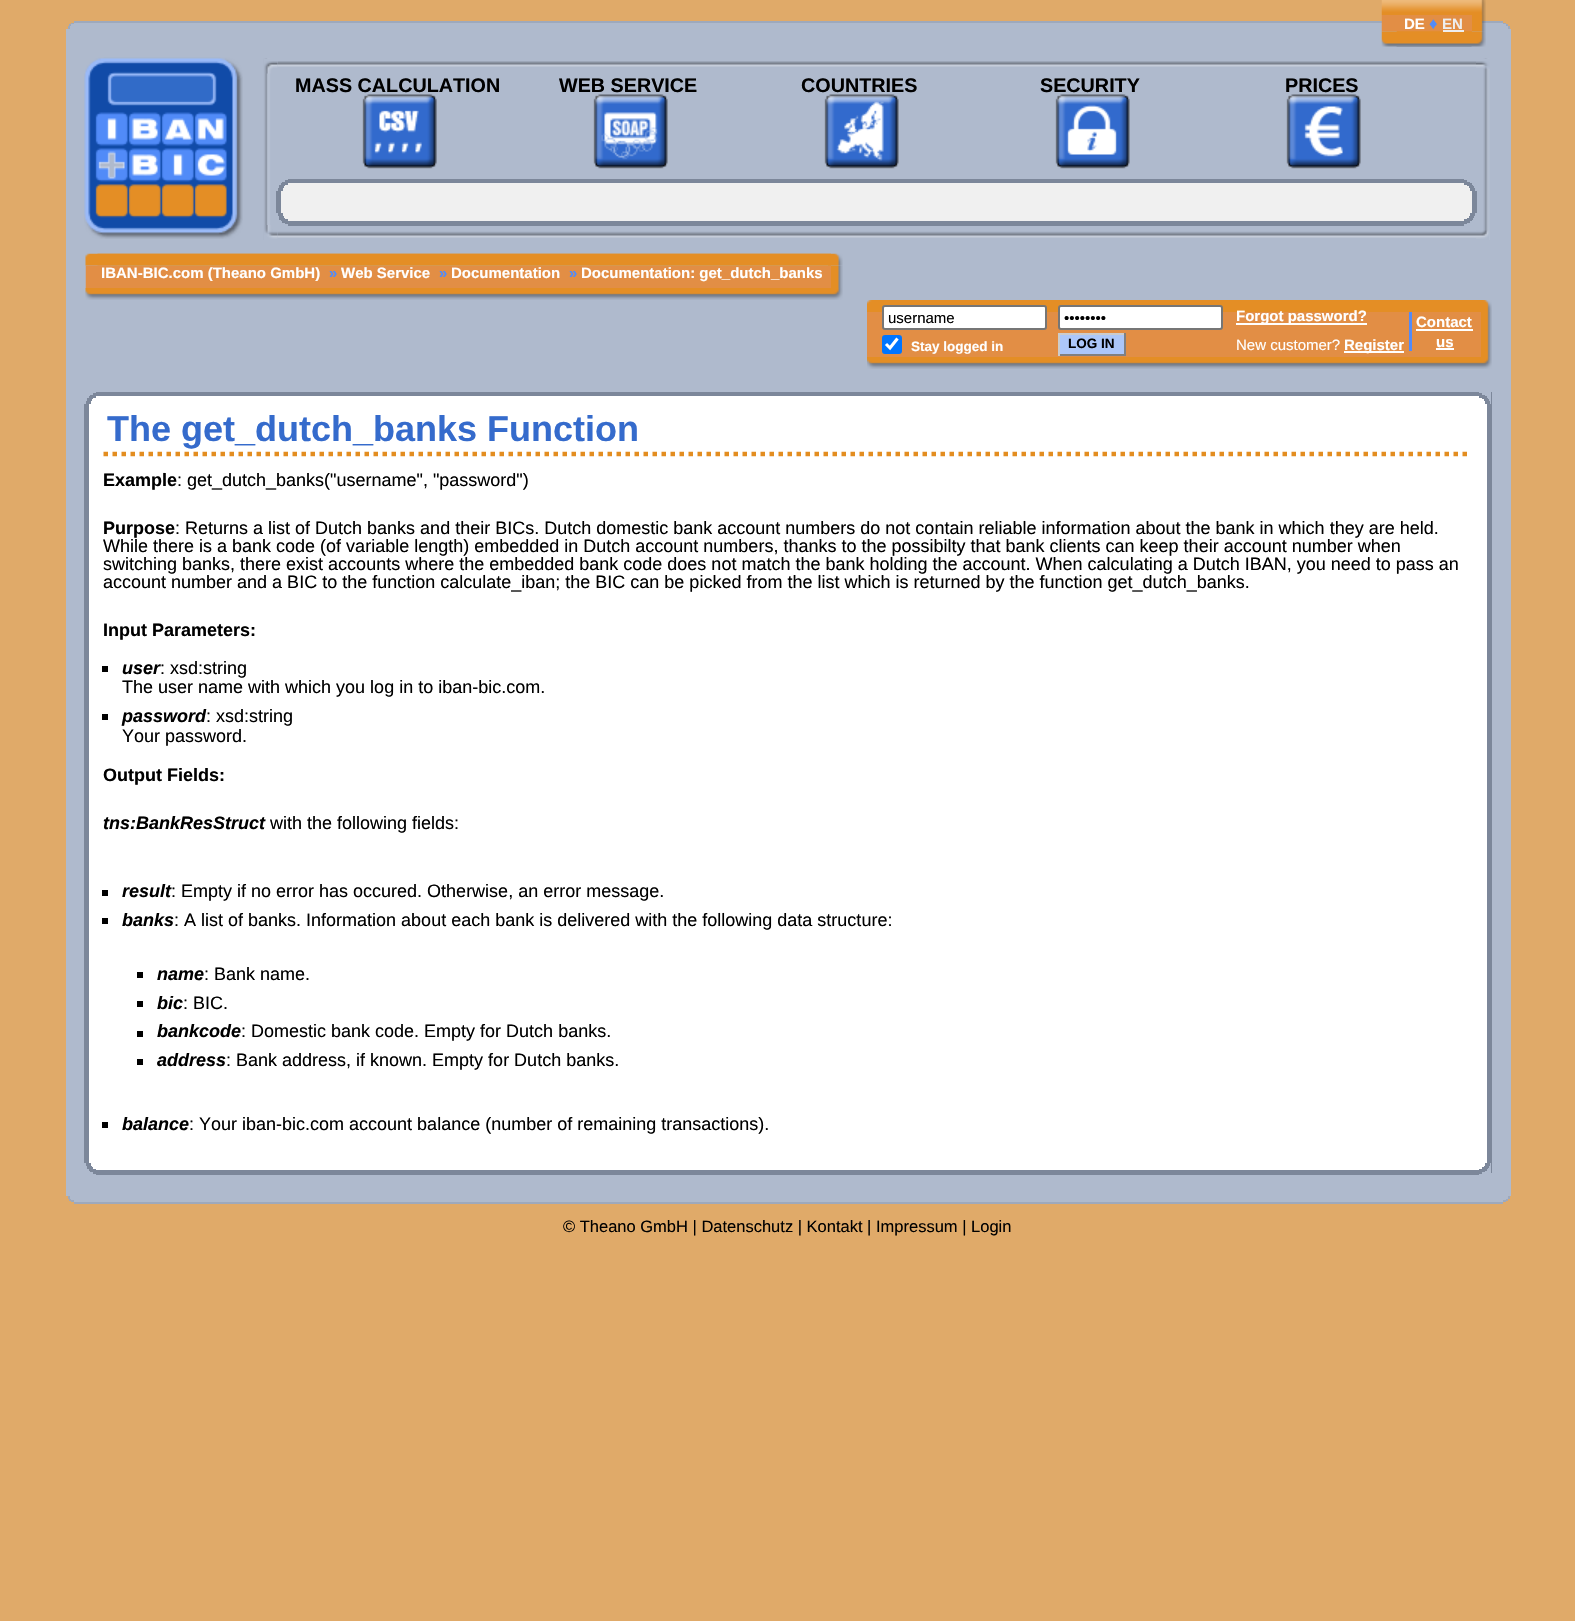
void draw(SkCanvas* canvas) {
	SkPaint fill;
	fill.setAntiAlias(true);
	auto makeFont = [&](const char* family, int weight, float size, bool italic = false) {
		SkFontStyle style(weight, SkFontStyle::kNormal_Width,
			italic ? SkFontStyle::kItalic_Slant : SkFontStyle::kUpright_Slant);
		SkFont result(fontMgr->matchFamilyStyle(family, style), size);
		result.setSubpixel(true);
		return result;
	};
	auto text = [&](const char* s, float x, float y, const SkFont& font) {
		canvas->drawString(s, x, y, font, fill);
	};
	auto box = [&](float l, float t, float r, float b) {
		canvas->drawRect(SkRect::MakeLTRB(l, t, r, b), fill);
	};
	auto roundBox = [&](float l, float t, float r, float b, float radius) {
		canvas->drawRoundRect(SkRect::MakeLTRB(l, t, r, b), radius, radius, fill);
	};
	auto picture = [&](const char* path, float l, float t, float r, float b) {
		auto image = SkImages::DeferredFromEncodedData(SkData::MakeFromFileName(path));
		canvas->drawImageRect(image, SkRect::MakeLTRB(l, t, r, b), SkSamplingOptions());
	};
	canvas->clear(0xFFE0AA69);
	picture("image0.png", 1381, 0, 1471, 15);
	picture("image1.png", 1471, 0, 1486, 15);
	fill.setColor(0xFFAFBACD);
	box(66, 29, 1511, 1196);
	fill.setColor(0xFF9EA9BC);
	box(74, 21, 1503, 23);
	fill.setColor(0xFFAFBACD);
	box(71, 23, 1506, 24);
	box(69, 24, 1508, 26);
	box(68, 26, 1509, 29);
	picture("image2.png", 1381, 15, 1397, 32);
	picture("image3.png", 1472, 15, 1486, 32);
	fill.setColor(0xFFE28E45);
	box(1397, 15, 1472, 32);
	picture("image4.png", 1381, 31, 1472, 47);
	picture("image5.png", 1396, 31, 1486, 47);
	fill.setColor(0xFFEEEEEE);
	box(1443, 30, 1464, 32);
	fill.setColor(0xFF9EA9BC);
	box(1503, 23, 1506, 24);
	box(71, 23, 74, 24);
	box(1506, 24, 1508, 26);
	box(69, 24, 71, 26);
	box(1508, 26, 1510, 29);
	box(68, 26, 70, 29);
	picture("image6.png", 84, 57, 243, 239);
	picture("image7.png", 277, 61, 1476, 67);
	picture("image8.png", 277, 231, 1476, 238);
	picture("image9.png", 261, 58, 278, 240);
	picture("image10.png", 1476, 58, 1491, 240);
	picture("image11.png", 264, 225, 278, 240);
	picture("image12.png", 1476, 230, 1489, 240);
	picture("image13.png", 264, 58, 278, 74);
	picture("image14.png", 1476, 58, 1490, 69);
	picture("image15.png", 362, 94, 437, 169);
	picture("image16.png", 593, 94, 668, 169);
	picture("image17.png", 824, 94, 899, 169);
	picture("image18.png", 1055, 94, 1130, 169);
	picture("image19.png", 1286, 94, 1361, 169);
	fill.setColor(0xFF7C879A);
	box(288, 179, 1464, 180);
	box(285, 180, 1467, 182);
	box(282, 182, 1470, 183);
	fill.setColor(0xFFF0F0F0);
	box(281, 183, 1472, 185);
	fill.setColor(0xFF7C879A);
	box(1464, 183, 1472, 185);
	box(281, 183, 288, 185);
	fill.setColor(0xFFF0F0F0);
	box(279, 185, 1473, 188);
	fill.setColor(0xFF7C879A);
	box(1467, 185, 1473, 186);
	box(279, 185, 285, 186);
	box(1469, 186, 1474, 188);
	box(279, 186, 284, 188);
	fill.setColor(0xFFF0F0F0);
	box(278, 188, 1475, 191);
	fill.setColor(0xFF7C879A);
	box(1470, 188, 1475, 191);
	box(278, 188, 283, 191);
	fill.setColor(0xFFF0F0F0);
	box(281, 191, 1472, 213);
	fill.setColor(0xFF7C879A);
	box(1472, 191, 1477, 213);
	box(276, 191, 281, 213);
	fill.setColor(0xFFF0F0F0);
	box(278, 213, 1475, 216);
	fill.setColor(0xFF7C879A);
	box(1470, 213, 1475, 216);
	box(278, 213, 283, 216);
	fill.setColor(0xFFF0F0F0);
	box(279, 216, 1473, 219);
	fill.setColor(0xFF7C879A);
	box(1469, 216, 1474, 218);
	box(279, 216, 284, 218);
	box(1467, 218, 1473, 220);
	box(279, 218, 285, 220);
	fill.setColor(0xFFF0F0F0);
	box(281, 219, 1472, 221);
	fill.setColor(0xFF7C879A);
	box(1464, 219, 1472, 221);
	box(281, 219, 288, 221);
	box(282, 221, 1470, 223);
	box(285, 223, 1467, 224);
	box(288, 224, 1464, 226);
	picture("image20.png", 85, 253, 831, 266);
	picture("image21.png", 97, 253, 843, 266);
	picture("image22.png", 85, 265, 117, 288);
	picture("image23.png", 828, 265, 843, 288);
	fill.setColor(0xFFE28E45);
	box(110, 266, 831, 288);
	picture("image24.png", 85, 288, 831, 300);
	picture("image25.png", 831, 288, 843, 300);
	picture("image26.png", 867, 300, 1480, 312);
	picture("image27.png", 1480, 300, 1492, 312);
	box(867, 312, 1481, 357);
	picture("image28.png", 1481, 312, 1492, 357);
	fill.setColor(0xFFFFFFFF);
	canvas->drawRoundRect(SkRect::MakeLTRB(883, 306, 1046, 329), 2, 2, fill);
	fill.setStyle(SkPaint::kStroke_Style);
	fill.setStrokeWidth(2);
	fill.setColor(0xFF767676);
	canvas->drawRoundRect(SkRect::MakeLTRB(883, 306, 1046, 329), 2, 2, fill);
	fill.setStyle(SkPaint::kFill_Style);
	fill.setColor(0xFFFFFFFF);
	canvas->drawRoundRect(SkRect::MakeLTRB(1059, 306, 1222, 329), 2, 2, fill);
	fill.setStyle(SkPaint::kStroke_Style);
	fill.setColor(0xFF767676);
	canvas->drawRoundRect(SkRect::MakeLTRB(1059, 306, 1222, 329), 2, 2, fill);
	fill.setStyle(SkPaint::kFill_Style);
	fill.setColor(0xFFFFFFFF);
	box(1236, 323, 1367, 325);
	fill.setColor(0xFF518BF9);
	box(1409, 312, 1412, 351);
	fill.setColor(0xFFFFFFFF);
	box(1416, 329, 1473, 331);
	box(1436, 348, 1454, 350);
	fill.setColor(0xFF0075FF);
	roundBox(882, 335, 902, 354, 3);
	fill.setStyle(SkPaint::kStroke_Style);
	fill.setStrokeWidth(3.1f);
	fill.setColor(0xFFFFFFFF);
	canvas->drawPath(SkPathBuilder().moveTo(886, 344).lineTo(890, 348).lineTo(897.5f, 338.5f).detach(), fill);
	fill.setStyle(SkPaint::kFill_Style);
	fill.setColor(0xFFACC7F9);
	box(1060, 335, 1124, 354);
	fill.setColor(0xFFCCCCCC);
	box(1058, 333, 1125, 335);
	fill.setColor(0xFF808080);
	box(1124, 333, 1126, 356);
	box(1058, 354, 1125, 356);
	fill.setColor(0xFFCCCCCC);
	box(1058, 333, 1060, 356);
	fill.setColor(0xFFFFFFFF);
	box(1344, 351, 1404, 353);
	picture("image29.png", 867, 357, 1480, 369);
	picture("image30.png", 1480, 357, 1492, 369);
	box(89, 404, 1487, 1163);
	fill.setColor(0xFF7C879A);
	box(1487, 392, 1492, 1173);
	box(84, 404, 89, 1163);
	fill.setColor(0xFFAFBACD);
	box(1487, 392, 1491, 404);
	fill.setColor(0xFF7C879A);
	box(96, 392, 1479, 393);
	box(93, 393, 1482, 395);
	box(90, 395, 1485, 396);
	fill.setColor(0xFFFFFFFF);
	box(89, 396, 1487, 398);
	fill.setColor(0xFF7C879A);
	box(1479, 396, 1487, 398);
	box(89, 396, 96, 398);
	fill.setColor(0xFFFFFFFF);
	box(87, 398, 1488, 401);
	fill.setColor(0xFF7C879A);
	box(1482, 398, 1488, 399);
	box(87, 398, 93, 399);
	box(1484, 399, 1489, 401);
	box(87, 399, 92, 401);
	fill.setColor(0xFFFFFFFF);
	box(86, 401, 1490, 404);
	fill.setColor(0xFF7C879A);
	box(1485, 401, 1490, 404);
	box(86, 401, 91, 404);
	fill.setStyle(SkPaint::kStroke_Style);
	fill.setStrokeWidth(4.5f);
	fill.setColor(0xFFE38D20);
	fill.setPathEffect(SkDashPathEffect::Make({{4.5f, 4.5f}}, 0));
	canvas->drawPath(SkPathBuilder().moveTo(103.5f, 454).lineTo(1471.5f, 454).detach(), fill);
	fill.setPathEffect(nullptr);
	fill.setStyle(SkPaint::kFill_Style);
	fill.setColor(0xFF000000);
	box(102, 666, 108, 672);
	box(102, 714, 108, 720);
	box(102, 890, 108, 896);
	box(102, 918, 108, 924);
	box(137, 972, 143, 978);
	box(137, 1001, 143, 1007);
	box(137, 1031, 143, 1037);
	box(137, 1059, 143, 1065);
	box(102, 1122, 108, 1128);
	fill.setColor(0xFFAFBACD);
	box(1487, 1163, 1491, 1173);
	fill.setColor(0xFFFFFFFF);
	box(86, 1163, 1490, 1166);
	fill.setColor(0xFF7C879A);
	box(1485, 1163, 1490, 1166);
	box(86, 1163, 91, 1166);
	fill.setColor(0xFFFFFFFF);
	box(87, 1166, 1488, 1167);
	fill.setColor(0xFF7C879A);
	box(1484, 1166, 1489, 1168);
	box(87, 1166, 92, 1167);
	fill.setColor(0xFFFFFFFF);
	box(87, 1167, 1488, 1169);
	fill.setColor(0xFF7C879A);
	box(1482, 1167, 1488, 1169);
	box(87, 1167, 93, 1169);
	fill.setColor(0xFFFFFFFF);
	box(89, 1169, 1487, 1170);
	fill.setColor(0xFF7C879A);
	box(1479, 1169, 1487, 1171);
	box(89, 1169, 96, 1171);
	box(90, 1170, 1485, 1172);
	box(93, 1172, 1482, 1174);
	box(96, 1174, 1479, 1175);
	fill.setColor(0xFFAFBACD);
	box(68, 1196, 1509, 1199);
	fill.setColor(0xFF9EA9BC);
	box(1508, 1196, 1510, 1199);
	box(68, 1196, 70, 1199);
	fill.setColor(0xFFAFBACD);
	box(69, 1199, 1508, 1200);
	fill.setColor(0xFF9EA9BC);
	box(1506, 1199, 1508, 1201);
	box(69, 1199, 71, 1201);
	fill.setColor(0xFFAFBACD);
	box(71, 1200, 1506, 1202);
	fill.setColor(0xFF9EA9BC);
	box(1503, 1200, 1506, 1202);
	box(71, 1200, 74, 1202);
	box(74, 1202, 1503, 1204);
	auto font1 = makeFont("Liberation Sans", 700, 15);
	fill.setColor(0xFFFFFFFF);
	text("DE", 1404, 29, font1);
	auto font2 = makeFont("Liberation Sans", 700, 16.5f);
	fill.setColor(0xFF518BF9);
	text("♦", 1429, 29, font2);
	fill.setColor(0xFFEEEEEE);
	text("EN", 1442, 29, font1);
	auto font3 = makeFont("Liberation Sans", 700, 19.75f);
	fill.setColor(0xFF000000);
	text("MASS CALCULATION", 295, 92, font3);
	text("WEB SERVICE", 559, 92, font3);
	text("COUNTRIES", 801, 92, font3);
	text("SECURITY", 1040, 92, font3);
	text("PRICES", 1285, 92, font3);
	fill.setColor(0xFFFFFFFF);
	text("IBAN-BIC.com (Theano GmbH)", 101, 278, font1);
	fill.setColor(0xFF518BF9);
	text("»", 329, 278, font1);
	fill.setColor(0xFFFFFFFF);
	text("Web Service", 341, 278, font1);
	fill.setColor(0xFF518BF9);
	text("»", 439, 278, font1);
	fill.setColor(0xFFFFFFFF);
	text("Documentation", 451, 278, font1);
	fill.setColor(0xFF518BF9);
	text("»", 569, 278, font1);
	fill.setColor(0xFFFFFFFF);
	text("Documentation: get_dutch_banks", 581, 278, font1);
	auto font4 = makeFont("Liberation Sans", 400, 15);
	fill.setColor(0xFF000000);
	text("username", 888, 323, font4);
	text("••••••••", 1064, 323, font4);
	fill.setColor(0xFFFFFFFF);
	text("Forgot password?", 1236, 321, font1);
	text("Contact", 1416, 327, font1);
	text("us", 1436, 347, font1);
	auto font5 = makeFont("Liberation Sans", 700, 13.5f);
	text("Stay logged in", 911, 351, font5);
	fill.setColor(0xFF000000);
	text("LOG IN", 1068, 348, font5);
	fill.setColor(0xFFFFFFFF);
	text("New customer?", 1236, 350, font4);
	text("Register", 1344, 350, font1);
	auto font6 = makeFont("Liberation Sans", 700, 36);
	fill.setColor(0xFF356BCC);
	text("The get_dutch_banks Function", 107, 441, font6);
	auto font7 = makeFont("Liberation Sans", 700, 18);
	fill.setColor(0xFF000000);
	text("Example", 103, 486, font7);
	auto font8 = makeFont("Liberation Sans", 400, 18);
	text(": get_dutch_banks(\"username\", \"password\")", 177, 486, font8);
	text("Purpose", 103, 534, font7);
	text(": Returns a list of Dutch banks and their BICs. Dutch domestic bank account numbers do not contain reliable information about the bank in which they are held.", 175, 534, font8);
	text("While there is a bank code (of variable length) embedded in Dutch account numbers, thanks to the possibilty that bank clients can keep their account number when", 103, 552, font8);
	text("switching banks, there exist accounts where the embedded bank code does not match the bank holding the account. When calculating a Dutch IBAN, you need to pass an", 103, 570, font8);
	text("account number and a BIC to the function calculate_iban; the BIC can be picked from the list which is returned by the function get_dutch_banks.", 103, 588, font8);
	text("Input Parameters:", 103, 636, font7);
	auto font9 = makeFont("Liberation Sans", 700, 18, true);
	text("user", 122, 674, font9);
	text(": xsd:string", 160, 674, font8);
	text("The user name with which you log in to iban-bic.com.", 122, 693, font8);
	text("password", 122, 722, font9);
	text(": xsd:string", 206, 722, font8);
	text("Your password.", 122, 742, font8);
	text("Output Fields:", 103, 781, font7);
	text("tns:BankResStruct", 103, 829, font9);
	text("with the following fields:", 270, 829, font8);
	text("result", 122, 897, font9);
	text(": Empty if no error has occured. Otherwise, an error message.", 171, 897, font8);
	text("banks", 122, 926, font9);
	text(": A list of banks. Information about each bank is delivered with the following data structure:", 174, 926, font8);
	text("name", 157, 980, font9);
	text(": Bank name.", 204, 980, font8);
	text("bic", 157, 1009, font9);
	text(": BIC.", 183, 1009, font8);
	text("bankcode", 157, 1037, font9);
	text(": Domestic bank code. Empty for Dutch banks.", 241, 1037, font8);
	text("address", 157, 1066, font9);
	text(": Bank address, if known. Empty for Dutch banks.", 226, 1066, font8);
	text("balance", 122, 1130, font9);
	text(": Your iban-bic.com account balance (number of remaining transactions).", 189, 1130, font8);
	auto font10 = makeFont("Liberation Sans", 400, 16.5f);
	text("© Theano GmbH | Datenschutz | Kontakt | Impressum | Login", 563, 1232, font10);
}
